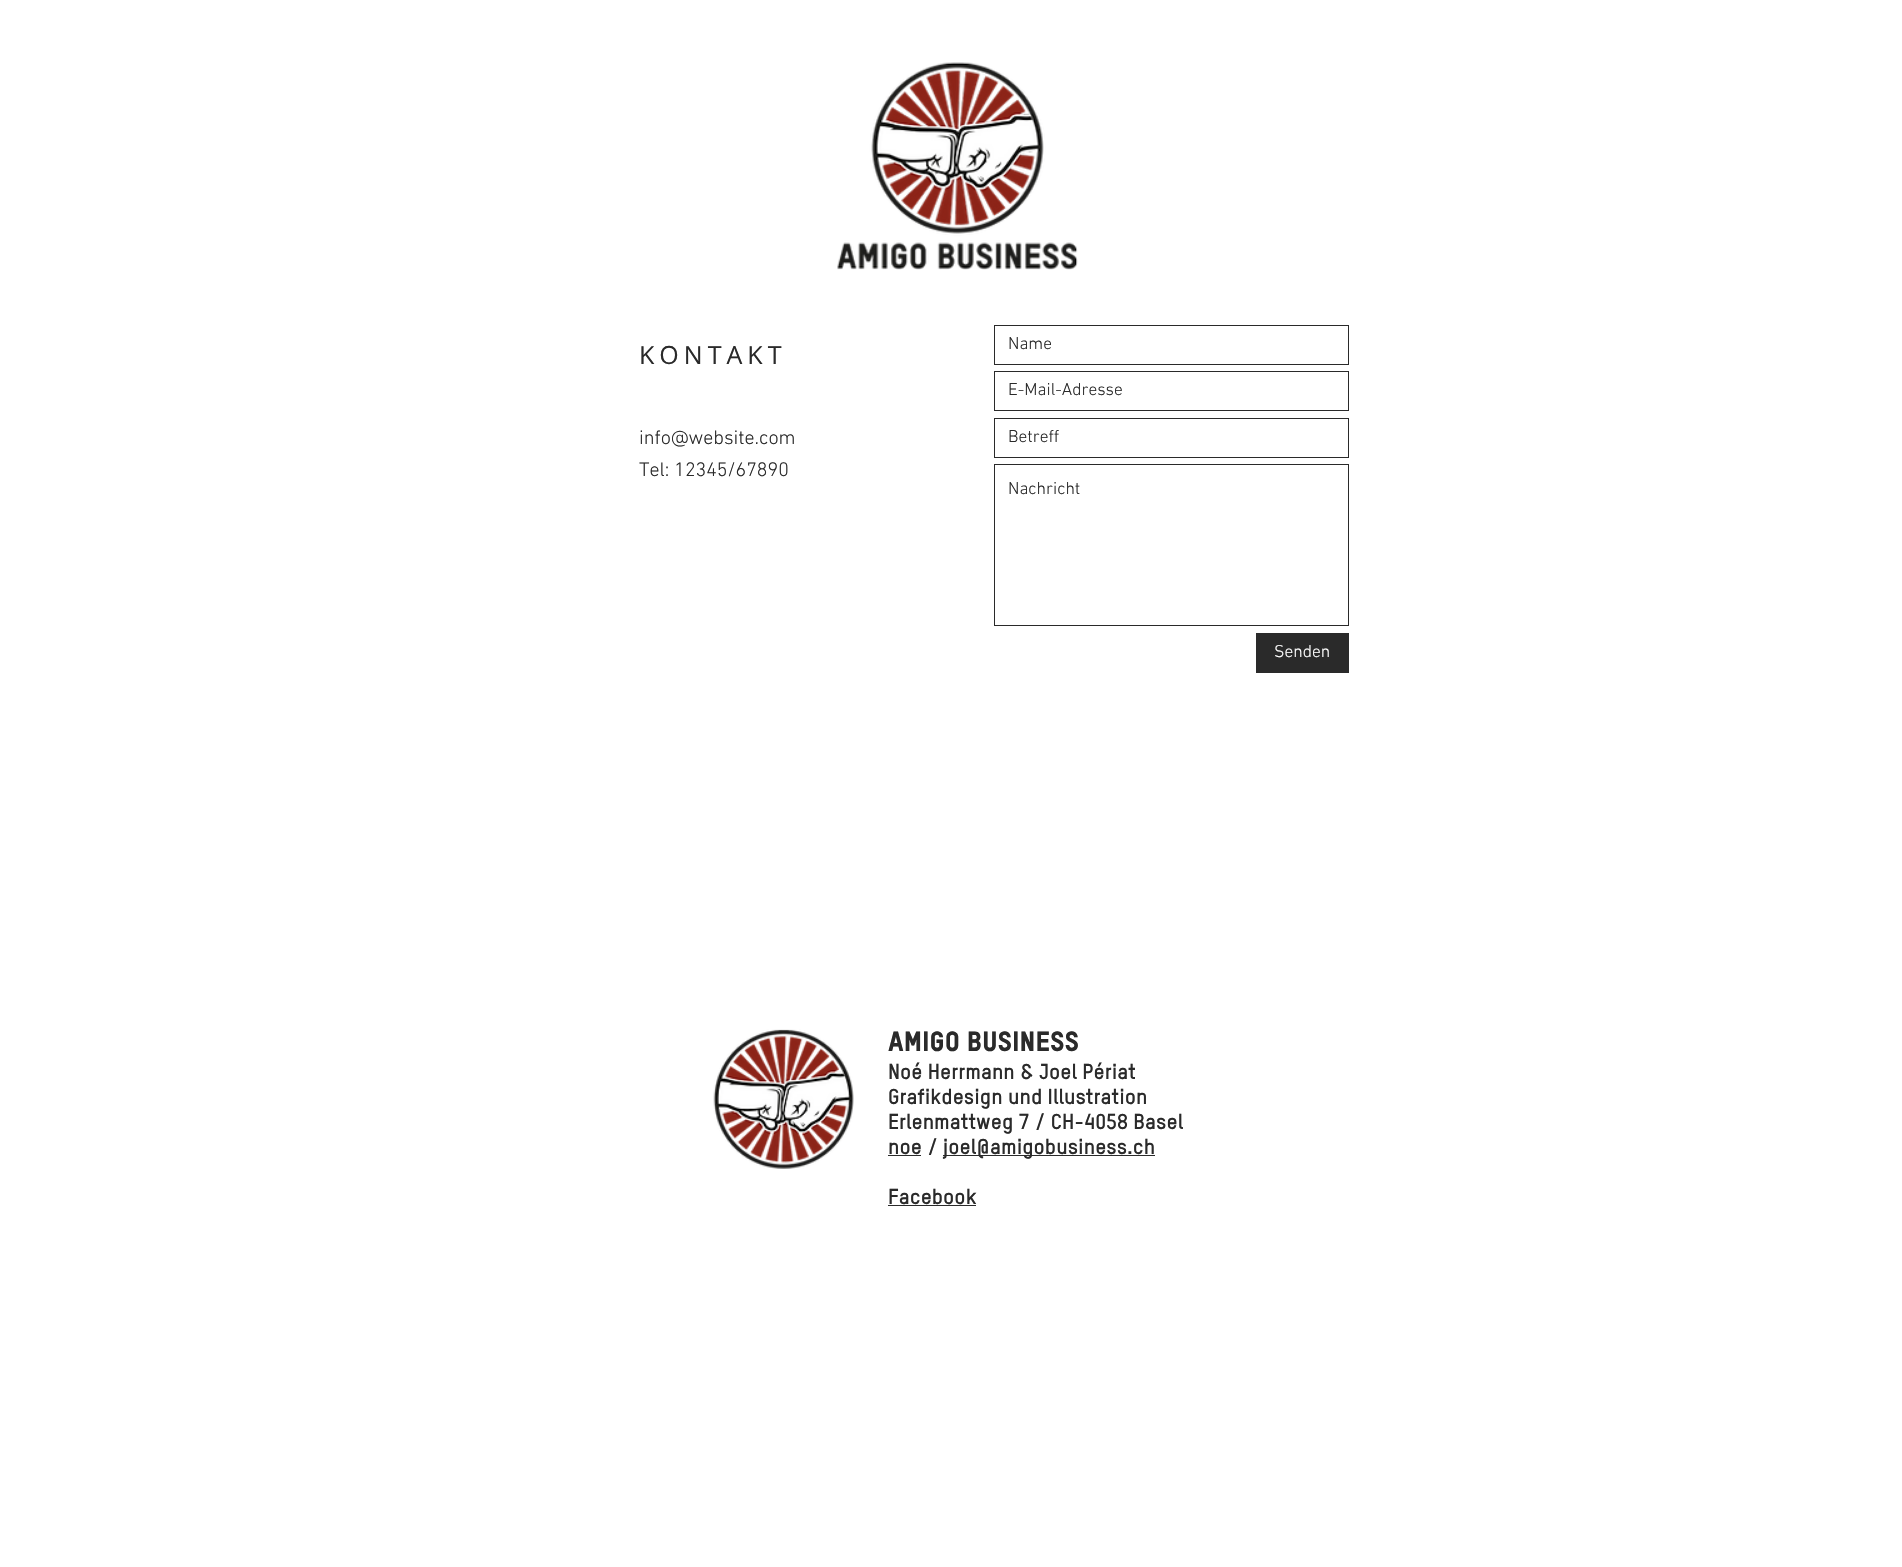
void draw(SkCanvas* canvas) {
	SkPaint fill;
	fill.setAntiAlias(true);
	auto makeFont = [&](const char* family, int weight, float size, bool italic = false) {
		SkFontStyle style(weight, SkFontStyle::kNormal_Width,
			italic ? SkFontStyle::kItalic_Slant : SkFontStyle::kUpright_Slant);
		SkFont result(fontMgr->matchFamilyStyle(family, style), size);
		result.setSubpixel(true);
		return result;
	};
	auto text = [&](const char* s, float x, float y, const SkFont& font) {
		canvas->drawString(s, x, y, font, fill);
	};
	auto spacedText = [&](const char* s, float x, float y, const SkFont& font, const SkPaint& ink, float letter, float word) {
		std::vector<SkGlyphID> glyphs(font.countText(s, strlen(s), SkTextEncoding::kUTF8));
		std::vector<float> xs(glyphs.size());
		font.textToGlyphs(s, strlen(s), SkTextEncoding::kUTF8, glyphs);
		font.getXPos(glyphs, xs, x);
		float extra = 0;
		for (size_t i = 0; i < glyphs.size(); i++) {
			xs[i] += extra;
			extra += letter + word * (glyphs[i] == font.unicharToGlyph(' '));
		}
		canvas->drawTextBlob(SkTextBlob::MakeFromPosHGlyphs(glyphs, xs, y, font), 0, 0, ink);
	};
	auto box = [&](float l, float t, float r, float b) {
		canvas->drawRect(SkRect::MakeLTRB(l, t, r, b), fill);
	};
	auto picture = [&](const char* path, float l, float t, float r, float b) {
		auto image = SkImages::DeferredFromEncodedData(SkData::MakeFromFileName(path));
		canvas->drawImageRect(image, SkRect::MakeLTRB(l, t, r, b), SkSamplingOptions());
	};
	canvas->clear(0xFFFFFFFF);
	picture("image0.png", 837, 62, 1078, 270);
	fill.setStyle(SkPaint::kStroke_Style);
	fill.setStrokeWidth(1);
	fill.setColor(0xFF2A2A2A);
	canvas->drawRect(SkRect::MakeLTRB(994.5f, 325.5f, 1348.5f, 364.5f), fill);
	canvas->drawRect(SkRect::MakeLTRB(994.5f, 371.5f, 1348.5f, 410.5f), fill);
	canvas->drawRect(SkRect::MakeLTRB(994.5f, 418.5f, 1348.5f, 457.5f), fill);
	canvas->drawRect(SkRect::MakeLTRB(994.5f, 464.5f, 1348.5f, 625.5f), fill);
	fill.setStyle(SkPaint::kFill_Style);
	box(1256, 633, 1349, 673);
	picture("image1.png", 713, 1029, 854, 1169);
	box(888, 1155, 921, 1156);
	box(943, 1155, 1155, 1156);
	box(888, 1205, 976, 1206);
	auto font1 = makeFont("Open Sans", 400, 25);
	spacedText("KONTAKT", 639, 364, font1, fill, 5, 0);
	auto font2 = makeFont("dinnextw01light", 300, 17.5f);
	text("Name", 1008, 349, font2);
	text("E-Mail-Adresse", 1008, 395, font2);
	text("Betreff", 1008, 442, font2);
	text("Nachricht", 1008, 494, font2);
	fill.setColor(0xFFFFFFFF);
	text("Senden", 1274, 657, font2);
	auto font3 = makeFont("dinnextw01light", 300, 20);
	fill.setColor(0xFF2A2A2A);
	text("info@website.com", 639, 444, font3);
	text("Tel: 12345/67890", 639, 476, font3);
	auto font4 = makeFont("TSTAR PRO", 900, 27.5f);
	text("AMIGO BUSINESS", 888, 1051, font4);
	auto font5 = makeFont("TSTAR PRO", 700, 21.25f);
	text("Noé Herrmann & Joel Périat", 888, 1079, font5);
	text("Grafikdesign und Illustration", 888, 1104, font5);
	text("Erlenmattweg 7 / CH-4058 Basel", 888, 1129, font5);
	text("noe /", 888, 1154, font5);
	text("joel@amigobusiness.ch", 943, 1154, font5);
	text("Facebook", 888, 1204, font5);
}
